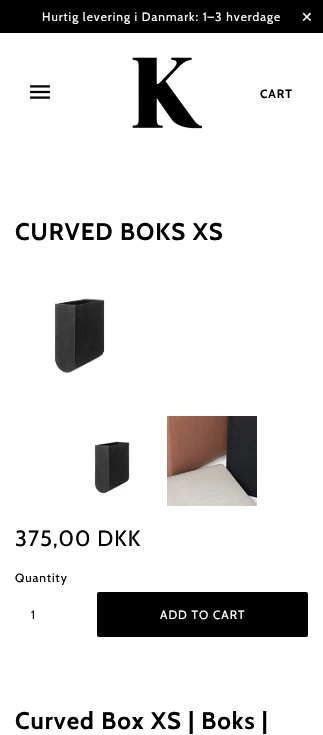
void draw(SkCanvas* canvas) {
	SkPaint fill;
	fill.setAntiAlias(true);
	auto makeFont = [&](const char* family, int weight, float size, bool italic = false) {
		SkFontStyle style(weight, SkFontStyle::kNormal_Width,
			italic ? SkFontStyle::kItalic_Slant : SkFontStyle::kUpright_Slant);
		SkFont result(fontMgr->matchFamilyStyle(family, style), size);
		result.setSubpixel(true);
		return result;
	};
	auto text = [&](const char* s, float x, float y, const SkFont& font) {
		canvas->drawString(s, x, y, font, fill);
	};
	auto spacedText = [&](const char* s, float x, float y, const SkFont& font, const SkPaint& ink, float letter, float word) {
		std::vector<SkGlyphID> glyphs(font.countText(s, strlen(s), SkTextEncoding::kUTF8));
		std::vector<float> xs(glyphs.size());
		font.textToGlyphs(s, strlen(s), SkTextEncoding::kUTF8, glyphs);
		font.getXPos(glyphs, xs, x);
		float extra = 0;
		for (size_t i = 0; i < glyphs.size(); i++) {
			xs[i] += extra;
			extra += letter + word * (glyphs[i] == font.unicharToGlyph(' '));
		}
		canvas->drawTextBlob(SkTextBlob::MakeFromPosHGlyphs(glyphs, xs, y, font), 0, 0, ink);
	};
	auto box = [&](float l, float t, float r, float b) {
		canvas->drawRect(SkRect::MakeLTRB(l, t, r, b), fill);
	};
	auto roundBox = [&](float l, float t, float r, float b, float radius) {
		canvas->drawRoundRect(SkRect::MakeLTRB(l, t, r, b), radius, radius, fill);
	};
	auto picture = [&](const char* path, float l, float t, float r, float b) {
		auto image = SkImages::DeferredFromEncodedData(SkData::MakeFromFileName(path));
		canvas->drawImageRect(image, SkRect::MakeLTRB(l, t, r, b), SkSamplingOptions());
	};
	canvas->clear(0xFFFFFFFF);
	fill.setColor(0xFF000000);
	box(0, 0, 323, 33);
	picture("image0.png", 30, 85, 50, 99);
	picture("image1.png", 132, 57, 203, 129);
	picture("image2.png", 54, 298, 105, 373);
	picture("image3.png", 94, 441, 130, 496);
	picture("image4.png", 167, 416, 257, 506);
	roundBox(97, 592, 308, 637, 2);
	auto font1 = makeFont("Cabin", 400, 12);
	fill.setColor(0xFFFFFFFF);
	spacedText("Hurtig levering i Danmark: 1–3 hverdage", 42, 21, font1, fill, 1, 0);
	auto font2 = makeFont("DejaVu Sans", 400, 14);
	text("✕", 301, 22, font2);
	auto font3 = makeFont("Cabin", 700, 12);
	fill.setColor(0xFF000000);
	spacedText("CART", 260, 98, font3, fill, 1, 0);
	auto font4 = makeFont("Cabin", 700, 24);
	spacedText("CURVED BOKS XS", 15, 240, font4, fill, 1, 0);
	auto font5 = makeFont("Cabin", 400, 22);
	spacedText("375,00 DKK", 15, 546, font5, fill, 1, 0);
	spacedText("Quantity", 15, 582, font1, fill, 1, 0);
	spacedText("1", 31, 619, font1, fill, 1, 0);
	fill.setColor(0xFFFFFFFF);
	spacedText("ADD TO CART", 160, 619, font1, fill, 1, 0);
	fill.setColor(0xFF000000);
	spacedText("Curved Box XS | Boks |", 15, 729, font4, fill, 1, 0);
}
